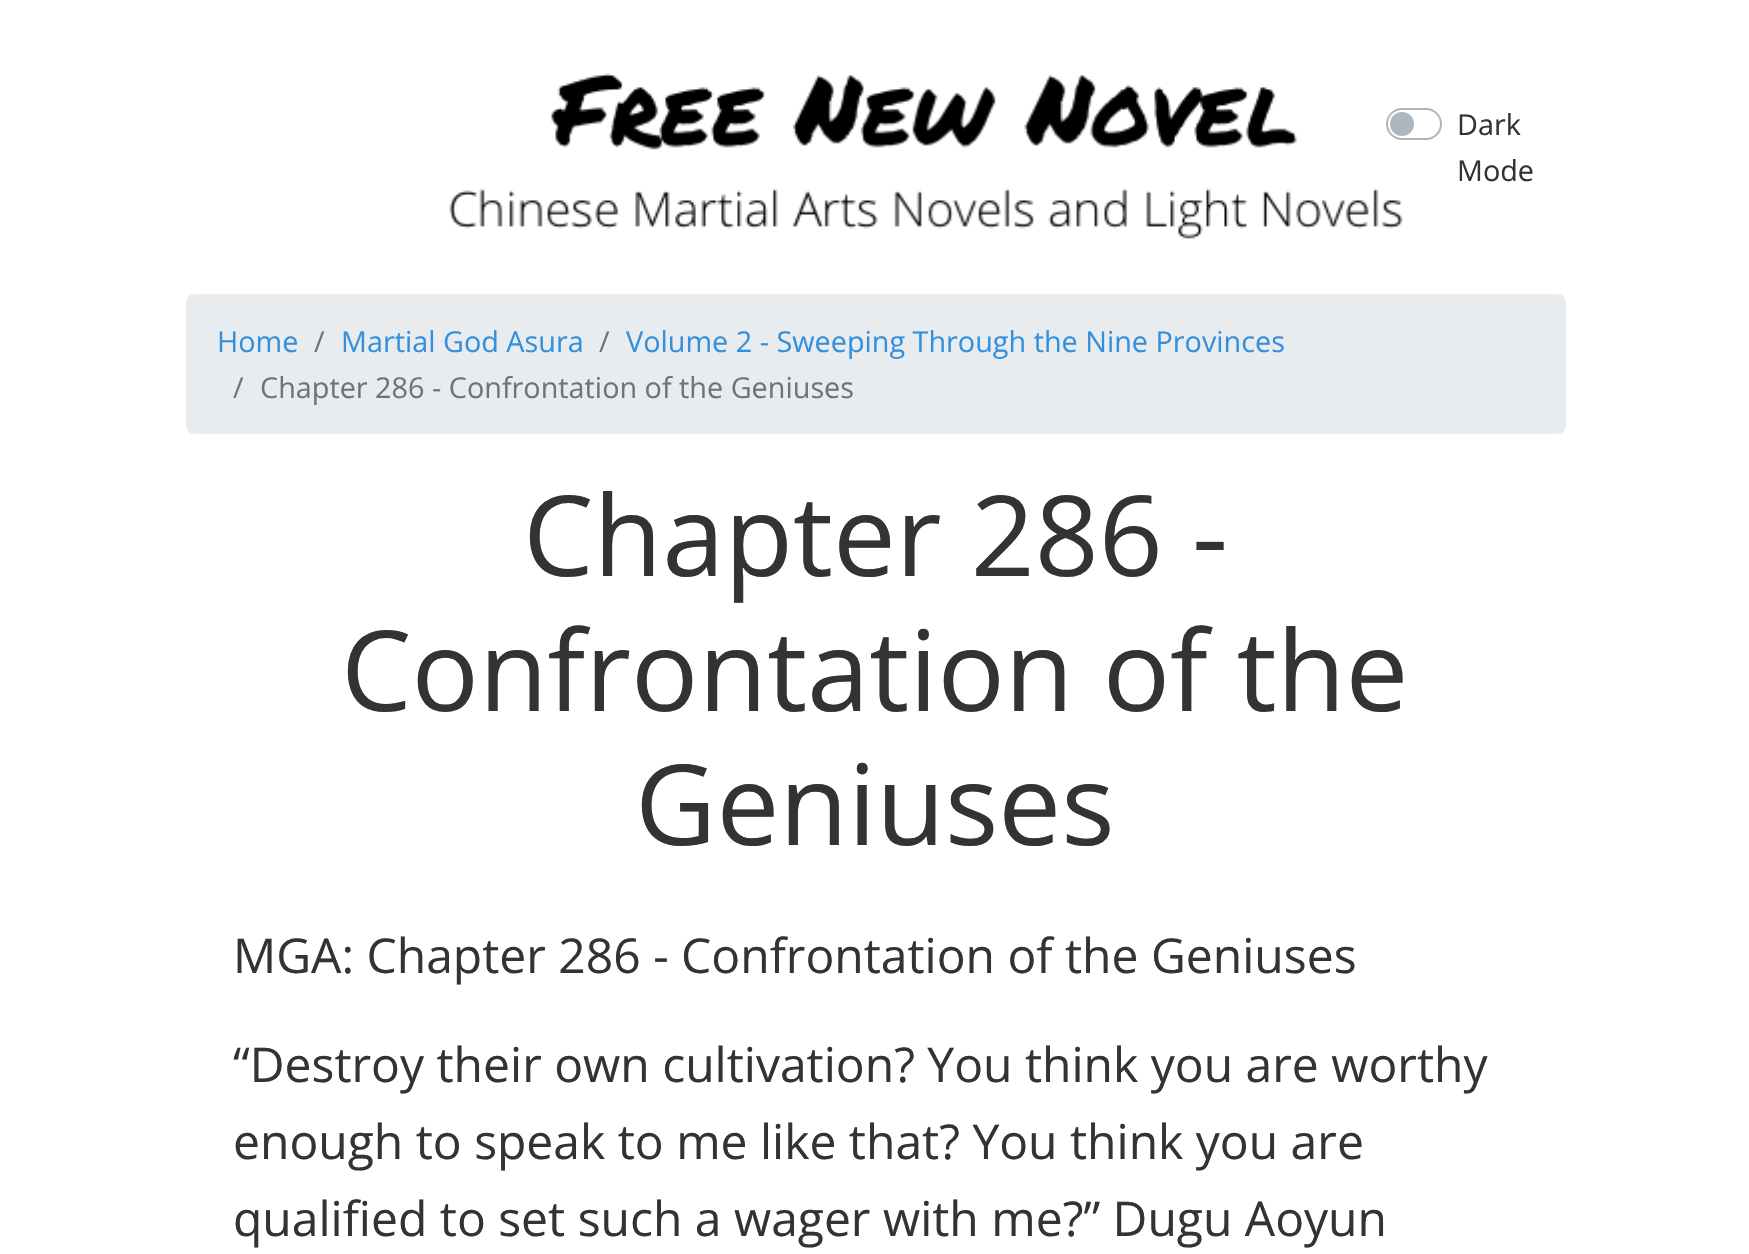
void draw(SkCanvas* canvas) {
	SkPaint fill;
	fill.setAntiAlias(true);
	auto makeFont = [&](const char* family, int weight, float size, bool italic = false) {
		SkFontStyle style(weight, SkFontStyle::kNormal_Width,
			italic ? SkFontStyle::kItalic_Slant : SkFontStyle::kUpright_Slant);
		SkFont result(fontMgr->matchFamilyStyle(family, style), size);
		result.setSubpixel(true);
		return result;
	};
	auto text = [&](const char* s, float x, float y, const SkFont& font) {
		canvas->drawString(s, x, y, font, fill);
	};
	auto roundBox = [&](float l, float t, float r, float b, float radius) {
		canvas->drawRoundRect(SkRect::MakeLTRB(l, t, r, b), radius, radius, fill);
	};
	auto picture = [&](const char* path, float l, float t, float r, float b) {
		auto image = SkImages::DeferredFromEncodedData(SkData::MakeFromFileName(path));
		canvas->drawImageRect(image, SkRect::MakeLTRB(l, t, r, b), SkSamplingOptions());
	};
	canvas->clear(0xFFFFFFFF);
	picture("image0.png", 449, 73, 1403, 239);
	fill.setStyle(SkPaint::kStroke_Style);
	fill.setStrokeWidth(2);
	fill.setColor(0xFFADB5BD);
	canvas->drawRoundRect(SkRect::MakeLTRB(1387, 109, 1441, 139), 15, 15, fill);
	fill.setStyle(SkPaint::kFill_Style);
	canvas->drawCircle(1402, 124, 12, fill);
	fill.setColor(0xFFE9ECEF);
	roundBox(186, 294, 1566, 434, 8);
	auto font1 = makeFont("Open Sans", 400, 28.8f);
	fill.setColor(0xFF333333);
	text("Dark", 1457, 135, font1);
	text("Mode", 1457, 181, font1);
	fill.setColor(0xFF3490DC);
	text("Home", 217, 352, font1);
	fill.setColor(0xFF6C757D);
	text("/", 314, 352, font1);
	fill.setColor(0xFF3490DC);
	text("Martial God Asura", 341, 352, font1);
	fill.setColor(0xFF6C757D);
	text("/", 599, 352, font1);
	fill.setColor(0xFF3490DC);
	text("Volume 2 - Sweeping Through the Nine Provinces", 626, 352, font1);
	fill.setColor(0xFF6C757D);
	text("/", 233, 398, font1);
	text("Chapter 286 - Confrontation of the Geniuses", 260, 398, font1);
	auto font2 = makeFont("Open Sans", 400, 112);
	fill.setColor(0xFF333333);
	text("Chapter 286 -", 523, 576, font2);
	text("Confrontation of the", 341, 711, font2);
	text("Geniuses", 635, 845, font2);
	auto font3 = makeFont("Open Sans", 400, 48);
	text("MGA: Chapter 286 - Confrontation of the Geniuses", 233, 973, font3);
	text("“Destroy their own cultivation? You think you are worthy", 233, 1082, font3);
	text("enough to speak to me like that? You think you are", 233, 1159, font3);
	text("qualified to set such a wager with me?” Dugu Aoyun", 233, 1236, font3);
}
